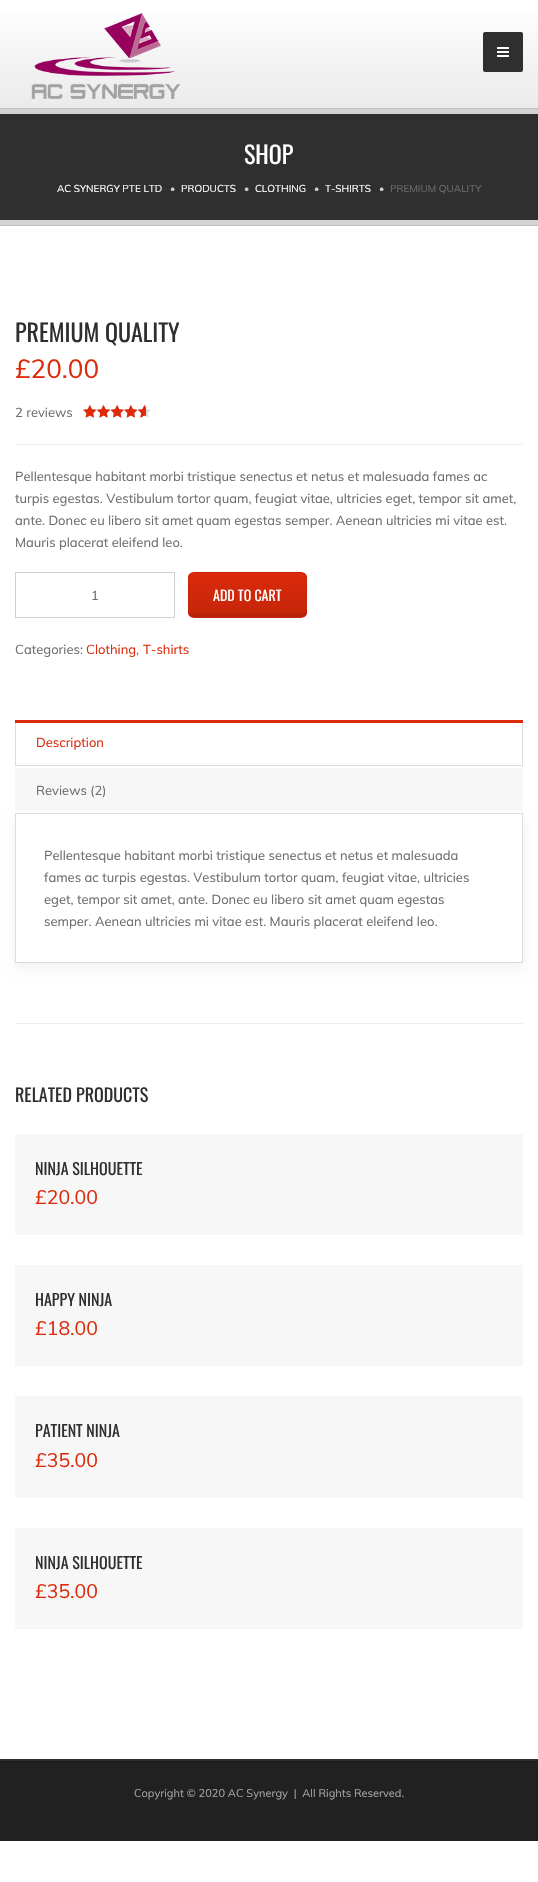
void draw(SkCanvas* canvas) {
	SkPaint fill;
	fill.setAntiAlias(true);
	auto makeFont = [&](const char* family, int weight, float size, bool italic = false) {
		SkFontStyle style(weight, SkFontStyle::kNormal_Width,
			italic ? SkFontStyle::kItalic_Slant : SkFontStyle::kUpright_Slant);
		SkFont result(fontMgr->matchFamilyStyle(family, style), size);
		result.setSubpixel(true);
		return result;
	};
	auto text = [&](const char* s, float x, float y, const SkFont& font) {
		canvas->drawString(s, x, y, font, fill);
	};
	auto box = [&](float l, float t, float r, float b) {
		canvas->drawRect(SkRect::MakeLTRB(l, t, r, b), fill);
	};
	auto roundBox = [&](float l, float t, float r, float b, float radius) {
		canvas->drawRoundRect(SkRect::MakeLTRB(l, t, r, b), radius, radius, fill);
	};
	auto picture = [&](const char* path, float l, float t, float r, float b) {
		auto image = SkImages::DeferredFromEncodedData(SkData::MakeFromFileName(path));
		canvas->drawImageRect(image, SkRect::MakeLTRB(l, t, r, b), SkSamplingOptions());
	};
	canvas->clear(0xFFFFFFFF);
	fill.setColor(0xFFECECEC);
	box(0, 100, 538, 108);
	{
		const SkColor colors[] = {0xFFFFFFFF, 0xFFECECEC};
		const float stops[] = {0, 1};
		const SkPoint ends[] = {{269, 0}, {269, 100}};
		fill.setShader(SkGradientShader::MakeLinear(ends, colors, stops, 2, SkTileMode::kClamp));
		fill.setAlpha(255);
	}
	box(0, 13, 538, 100);
	picture("image0.png", 31, 13, 180, 99);
	fill.setShader(nullptr);
	fill.setColor(0xFF2F2F2F);
	roundBox(483, 32, 523, 72, 2);
	picture("image1.png", 497, 47, 509, 57);
	box(0, 114, 538, 220);
	fill.setColor(0xFFD4D4D4);
	box(0, 109, 538, 114);
	box(0, 220, 538, 225);
	fill.setColor(0xFFBFBFBF);
	box(0, 108, 538, 109);
	box(0, 225, 538, 226);
	picture("image2.png", 83, 405, 151, 418);
	picture("image3.png", 83, 405, 146, 418);
	fill.setColor(0xFFEEEEEE);
	box(15, 444, 523, 445);
	fill.setStyle(SkPaint::kStroke_Style);
	fill.setStrokeWidth(1);
	fill.setColor(0xFFD0D0D0);
	canvas->drawRect(SkRect::MakeLTRB(15.5f, 572.5f, 174.5f, 617.5f), fill);
	canvas->save();
	canvas->clipPath(SkPathBuilder().moveTo(194, 572).lineTo(301, 572).cubicTo(304.5f, 572, 307, 574.5f, 307, 578).lineTo(307, 612).cubicTo(307, 615.5f, 304.5f, 618, 301, 618).lineTo(194, 618).cubicTo(190.5f, 618, 188, 615.5f, 188, 612).lineTo(188, 578).cubicTo(188, 574.5f, 190.5f, 572, 194, 572).close().detach(), true);
	fill.setStyle(SkPaint::kFill_Style);
	{
		const SkColor colors[] = {0xFFDC2A0B, 0xFFC4250A};
		const float stops[] = {0, 1};
		const SkPoint ends[] = {{248, 573}, {248, 617}};
		fill.setShader(SkGradientShader::MakeLinear(ends, colors, stops, 2, SkTileMode::kClamp));
		fill.setAlpha(255);
	}
	box(188, 573, 307, 617);
	canvas->restore();
	fill.setShader(nullptr);
	fill.setColor(0x0F000000);
	canvas->drawPath(SkPathBuilder().moveTo(189, 609).lineTo(189, 612).cubicTo(189, 615, 191, 617, 194, 617).lineTo(301, 617).cubicTo(304, 617, 306, 615, 306, 612).lineTo(306, 609).cubicTo(306, 612, 304, 614, 301, 614).lineTo(194, 614).cubicTo(191, 614, 189, 612, 189, 609).close().detach(), fill);
	fill.setStyle(SkPaint::kStroke_Style);
	fill.setColor(0xFFC4250A);
	canvas->drawRoundRect(SkRect::MakeLTRB(188.5f, 572.5f, 306.5f, 617.5f), 5.5f, 5.5f, fill);
	fill.setStyle(SkPaint::kFill_Style);
	fill.setColor(0xFFDCDCDC);
	box(522, 720, 523, 766);
	box(15, 764, 523, 766);
	box(15, 720, 16, 766);
	fill.setColor(0xFFDC2A0B);
	box(15, 720, 523, 723);
	fill.setColor(0xFFFFFFFF);
	box(16, 764, 522, 765);
	canvas->save();
	canvas->clipPath(SkPathBuilder(SkPathFillType::kEvenOdd).moveTo(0, 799).lineTo(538, 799).lineTo(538, 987).lineTo(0, 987).close().moveTo(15, 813).lineTo(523, 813).lineTo(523, 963).lineTo(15, 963).close().detach(), true);
	fill.setColor(0x0F000000);
	fill.setMaskFilter(SkMaskFilter::MakeBlur(kNormal_SkBlurStyle, 6));
	canvas->drawRect(SkRect::MakeLTRB(15, 818, 523, 968), fill);
	fill.setMaskFilter(nullptr);
	canvas->restore();
	fill.setColor(0xFFF7F7F7);
	box(15, 768, 523, 811);
	fill.setStyle(SkPaint::kStroke_Style);
	fill.setColor(0xFFDCDCDC);
	canvas->drawRect(SkRect::MakeLTRB(15.5f, 813.5f, 522.5f, 962.5f), fill);
	fill.setStyle(SkPaint::kFill_Style);
	fill.setColor(0xFFEEEEEE);
	box(15, 1023, 523, 1024);
	fill.setColor(0xFFF7F7F7);
	box(15, 1134, 523, 1235);
	box(15, 1265, 523, 1366);
	box(15, 1396, 523, 1498);
	box(15, 1528, 523, 1629);
	fill.setColor(0xFF2F2F2F);
	box(0, 1759, 538, 1761);
	fill.setColor(0xFF212121);
	box(0, 1762, 538, 1841);
	fill.setColor(0xFF191919);
	box(0, 1761, 538, 1762);
	auto font1 = makeFont("Oswald", 400, 24);
	fill.setColor(0xFFFFFFFF);
	text("SHOP", 244, 164, font1);
	auto font2 = makeFont("Muli", 400, 10);
	text("AC SYNERGY PTE LTD", 57, 192, font2);
	fill.setColor(0xFFCCCCCC);
	text("•", 170, 192, font2);
	fill.setColor(0xFFFFFFFF);
	text("PRODUCTS", 181, 192, font2);
	fill.setColor(0xFFCCCCCC);
	text("•", 244, 192, font2);
	fill.setColor(0xFFFFFFFF);
	text("CLOTHING", 255, 192, font2);
	fill.setColor(0xFFCCCCCC);
	text("•", 314, 192, font2);
	fill.setColor(0xFFFFFFFF);
	text("T-SHIRTS", 325, 192, font2);
	fill.setColor(0xFFCCCCCC);
	text("•", 379, 192, font2);
	fill.setColor(0xFF6D6D6D);
	text("PREMIUM QUALITY", 390, 192, font2);
	fill.setColor(0xFF2F2F2F);
	text("PREMIUM QUALITY", 15, 342, font1);
	auto font3 = makeFont("Muli", 400, 26);
	fill.setColor(0xFFDC2A0B);
	text("£20.00", 15, 378, font3);
	auto font4 = makeFont("Muli", 400, 13);
	fill.setColor(0xFF6D6D6D);
	text("2 reviews", 15, 417, font4);
	text("Pellentesque habitant morbi tristique senectus et netus et malesuada fames ac", 15, 481, font4);
	text("turpis egestas. Vestibulum tortor quam, feugiat vitae, ultricies eget, tempor sit amet,", 15, 503, font4);
	text("ante. Donec eu libero sit amet quam egestas semper. Aenean ultricies mi vitae est.", 15, 525, font4);
	text("Mauris placerat eleifend leo.", 15, 547, font4);
	text("1", 91, 600, font4);
	auto font5 = makeFont("Oswald", 400, 14);
	fill.setColor(0xFFFFFFFF);
	text("ADD TO CART", 213, 601, font5);
	fill.setColor(0xFF6D6D6D);
	text("Categories:", 15, 654, font4);
	fill.setColor(0xFFDC2A0B);
	text("Clothing", 86, 654, font4);
	fill.setColor(0xFF6D6D6D);
	text(",", 136, 654, font4);
	fill.setColor(0xFFDC2A0B);
	text("T-shirts", 143, 654, font4);
	text("Description", 36, 747, font4);
	fill.setColor(0xFF6D6D6D);
	text("Reviews (2)", 36, 795, font4);
	text("Pellentesque habitant morbi tristique senectus et netus et malesuada", 44, 860, font4);
	text("fames ac turpis egestas. Vestibulum tortor quam, feugiat vitae, ultricies", 44, 882, font4);
	text("eget, tempor sit amet, ante. Donec eu libero sit amet quam egestas", 44, 904, font4);
	text("semper. Aenean ultricies mi vitae est. Mauris placerat eleifend leo.", 44, 926, font4);
	auto font6 = makeFont("Oswald", 400, 18);
	fill.setColor(0xFF2F2F2F);
	text("RELATED PRODUCTS", 15, 1102, font6);
	auto font7 = makeFont("Oswald", 400, 16);
	text("NINJA SILHOUETTE", 35, 1175, font7);
	auto font8 = makeFont("Muli", 400, 19.5f);
	fill.setColor(0xFFDC2A0B);
	text("£20.00", 35, 1204, font8);
	fill.setColor(0xFF2F2F2F);
	text("HAPPY NINJA", 35, 1306, font7);
	fill.setColor(0xFFDC2A0B);
	text("£18.00", 35, 1335, font8);
	fill.setColor(0xFF2F2F2F);
	text("PATIENT NINJA", 35, 1437, font7);
	fill.setColor(0xFFDC2A0B);
	text("£35.00", 35, 1467, font8);
	fill.setColor(0xFF2F2F2F);
	text("NINJA SILHOUETTE", 35, 1569, font7);
	fill.setColor(0xFFDC2A0B);
	text("£35.00", 35, 1598, font8);
	auto font9 = makeFont("Muli", 400, 11);
	fill.setColor(0xFFA3A3A3);
	text("Copyright © 2020 AC Synergy  |  All Rights Reserved.", 134, 1797, font9);
}
